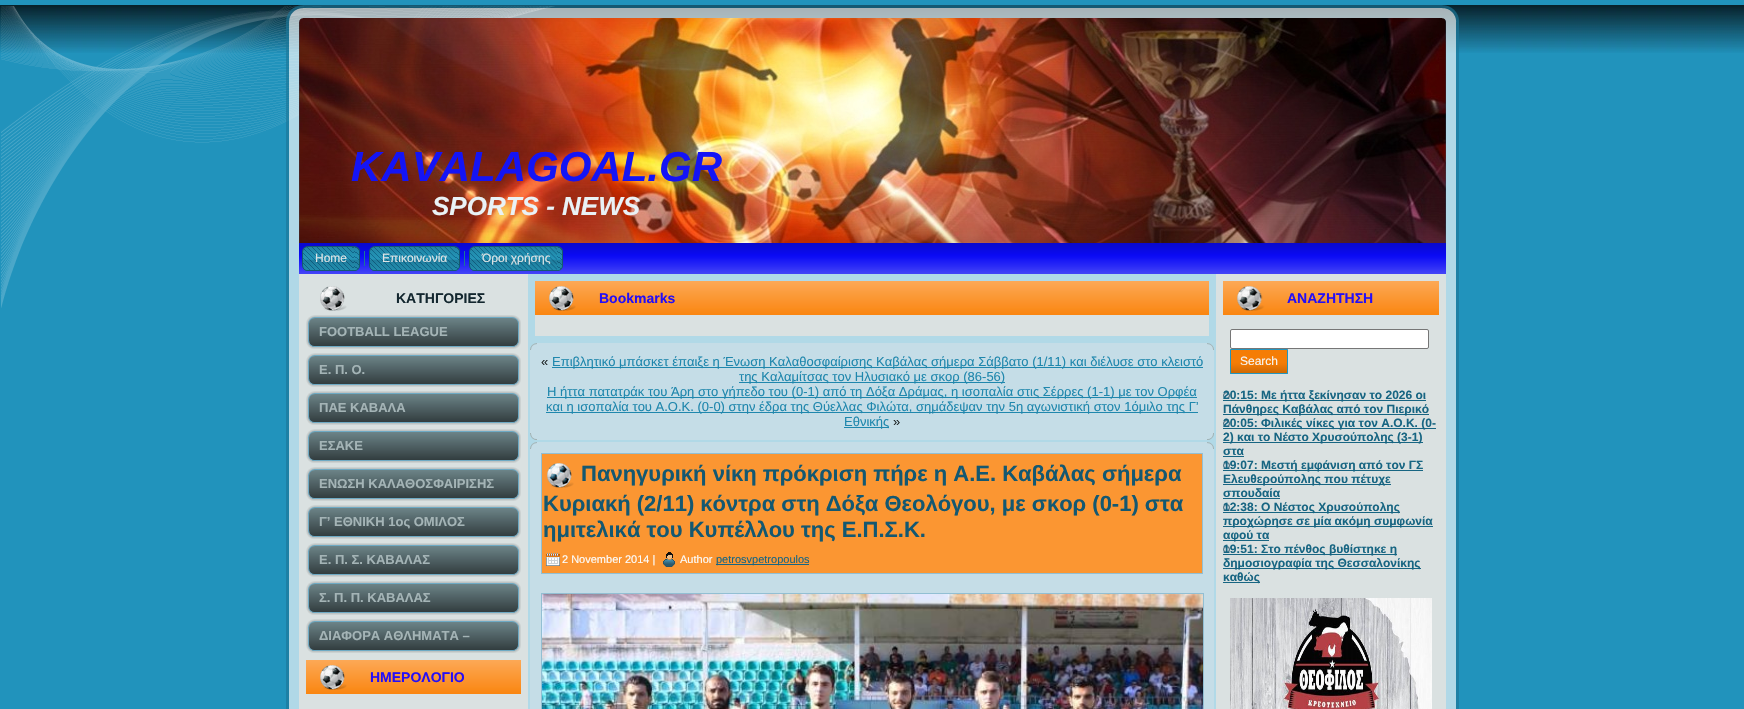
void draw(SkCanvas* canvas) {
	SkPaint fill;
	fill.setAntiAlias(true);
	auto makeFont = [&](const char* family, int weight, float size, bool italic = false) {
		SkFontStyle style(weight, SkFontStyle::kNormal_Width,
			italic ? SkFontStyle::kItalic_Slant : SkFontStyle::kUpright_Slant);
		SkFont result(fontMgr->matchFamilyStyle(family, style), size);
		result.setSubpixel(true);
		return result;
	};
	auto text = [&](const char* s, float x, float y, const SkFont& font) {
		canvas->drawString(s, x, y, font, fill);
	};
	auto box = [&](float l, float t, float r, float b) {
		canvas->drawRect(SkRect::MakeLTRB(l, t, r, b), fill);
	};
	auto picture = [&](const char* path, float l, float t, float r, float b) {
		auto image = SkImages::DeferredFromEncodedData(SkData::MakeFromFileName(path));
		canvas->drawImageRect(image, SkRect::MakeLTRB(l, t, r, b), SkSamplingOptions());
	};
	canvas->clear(0xFF2193BC);
	picture("image0.png", 0, 5, 1744, 53);
	picture("image1.png", 1, 6, 555, 308);
	picture("image2.png", 286, 5, 303, 22);
	picture("image3.png", 303, 5, 1442, 18);
	picture("image4.png", 1442, 5, 1459, 22);
	picture("image5.png", 286, 22, 299, 709);
	picture("image6.png", 299, 18, 1446, 243);
	picture("image7.png", 303, 22, 1442, 239);
	picture("image8.png", 299, 243, 1446, 274);
	picture("image9.png", 302, 246, 354, 271);
	picture("image10.png", 354, 246, 360, 271);
	fill.setColor(0xFF1B7698);
	box(364, 251, 365, 266);
	picture("image11.png", 369, 246, 454, 271);
	picture("image10.png", 454, 246, 460, 271);
	box(464, 251, 465, 266);
	picture("image12.png", 469, 246, 557, 271);
	picture("image10.png", 557, 246, 563, 271);
	fill.setColor(0xFFDAE1E1);
	box(299, 274, 528, 709);
	picture("image13.png", 320, 286, 347, 311);
	picture("image14.png", 306, 315, 510, 349);
	picture("image15.png", 510, 315, 521, 349);
	picture("image14.png", 306, 353, 510, 387);
	picture("image15.png", 510, 353, 521, 387);
	picture("image14.png", 306, 391, 510, 425);
	picture("image15.png", 510, 391, 521, 425);
	picture("image14.png", 306, 429, 510, 463);
	picture("image15.png", 510, 429, 521, 463);
	picture("image14.png", 306, 467, 510, 501);
	picture("image15.png", 510, 467, 521, 501);
	picture("image14.png", 306, 505, 510, 539);
	picture("image15.png", 510, 505, 521, 539);
	picture("image14.png", 306, 543, 510, 577);
	picture("image15.png", 510, 543, 521, 577);
	picture("image14.png", 306, 581, 510, 615);
	picture("image15.png", 510, 581, 521, 615);
	picture("image14.png", 306, 619, 510, 653);
	picture("image15.png", 510, 619, 521, 653);
	picture("image16.png", 306, 660, 463, 694);
	picture("image17.png", 463, 660, 521, 694);
	fill.setColor(0xA6FDFDFD);
	box(528, 274, 1216, 709);
	fill.setColor(0xFFDAE1E1);
	box(535, 315, 1209, 336);
	picture("image18.png", 535, 281, 1151, 315);
	picture("image17.png", 1151, 281, 1209, 315);
	picture("image19.png", 530, 343, 537, 350);
	fill.setColor(0xFFC5DDE7);
	box(537, 343, 1207, 350);
	picture("image20.png", 1207, 343, 1214, 350);
	box(530, 350, 537, 433);
	box(537, 350, 1214, 433);
	fill.setColor(0xFF1F87AD);
	box(552, 367, 1203, 368);
	box(739, 382, 1005, 383);
	box(547, 397, 1197, 398);
	box(546, 412, 1198, 413);
	box(844, 427, 889, 428);
	picture("image21.png", 530, 433, 537, 440);
	fill.setColor(0xFFC5DDE7);
	box(537, 433, 1207, 440);
	picture("image22.png", 1207, 433, 1214, 440);
	picture("image19.png", 530, 442, 537, 449);
	box(537, 442, 1207, 449);
	picture("image20.png", 1207, 442, 1214, 449);
	box(530, 449, 537, 709);
	box(537, 449, 1214, 709);
	fill.setColor(0xFFFB9632);
	canvas->drawRect(SkRect::MakeLTRB(541.5f, 453.5f, 1202.5f, 573.5f), fill);
	fill.setStyle(SkPaint::kStroke_Style);
	fill.setStrokeWidth(1);
	fill.setColor(0xFF92BFD3);
	canvas->drawRect(SkRect::MakeLTRB(541.5f, 453.5f, 1202.5f, 573.5f), fill);
	picture("image23.png", 547, 463, 574, 488);
	picture("image24.png", 546, 553, 560, 566);
	picture("image25.png", 663, 552, 675, 567);
	fill.setStyle(SkPaint::kFill_Style);
	fill.setColor(0xFF176582);
	box(716, 564, 809, 565);
	fill.setStyle(SkPaint::kStroke_Style);
	fill.setColor(0xFF92BFD3);
	canvas->drawRect(SkRect::MakeLTRB(541.5f, 593.5f, 1203.5f, 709.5f), fill);
	picture("image26.png", 542, 594, 1203, 709);
	fill.setStyle(SkPaint::kFill_Style);
	fill.setColor(0xFFDAE1E1);
	box(1216, 274, 1446, 709);
	picture("image27.png", 1223, 281, 1381, 315);
	picture("image17.png", 1381, 281, 1439, 315);
	fill.setColor(0xFFFFFFFF);
	canvas->drawRoundRect(SkRect::MakeLTRB(1230.5f, 329.5f, 1428.5f, 348.5f), 1.5f, 1.5f, fill);
	fill.setStyle(SkPaint::kStroke_Style);
	fill.setColor(0xFF767676);
	canvas->drawRoundRect(SkRect::MakeLTRB(1230.5f, 329.5f, 1428.5f, 348.5f), 1.5f, 1.5f, fill);
	picture("image28.png", 1230, 349, 1287, 374);
	picture("image29.png", 1287, 349, 1288, 374);
	picture("image30.png", 1223, 392, 1230, 399);
	fill.setStyle(SkPaint::kFill_Style);
	fill.setColor(0xFF176582);
	box(1223, 400, 1426, 401);
	box(1223, 414, 1429, 415);
	picture("image30.png", 1223, 420, 1230, 427);
	box(1223, 428, 1436, 429);
	box(1223, 442, 1423, 443);
	box(1223, 456, 1244, 457);
	picture("image30.png", 1223, 462, 1230, 469);
	box(1223, 470, 1423, 471);
	box(1223, 484, 1391, 485);
	box(1223, 498, 1280, 499);
	picture("image30.png", 1223, 504, 1230, 511);
	box(1223, 512, 1400, 513);
	box(1223, 526, 1433, 527);
	box(1223, 540, 1269, 541);
	picture("image30.png", 1223, 546, 1230, 553);
	box(1223, 554, 1397, 555);
	box(1223, 568, 1421, 569);
	box(1223, 582, 1260, 583);
	picture("image31.png", 1230, 598, 1432, 709);
	picture("image32.png", 1446, 22, 1459, 709);
	auto font1 = makeFont("Liberation Sans", 700, 42, true);
	fill.setColor(0xFF1414F5);
	text("KAVALAGOAL.GR", 351, 181, font1);
	auto font2 = makeFont("Liberation Sans", 700, 26, true);
	fill.setColor(0xFFE9F2F6);
	text("SPORTS - NEWS", 432, 215, font2);
	auto font3 = makeFont("Liberation Sans", 400, 12);
	fill.setColor(0xFFDDE3E4);
	text("Home", 315, 262, font3);
	text("Επικοινωνία", 382, 262, font3);
	text("Όροι χρήσης", 482, 262, font3);
	auto font4 = makeFont("Liberation Sans", 700, 14);
	fill.setColor(0xFF13272F);
	text("ΚΑΤΗΓΟΡΙΕΣ", 396, 303, font4);
	auto font5 = makeFont("Liberation Sans", 700, 13);
	fill.setColor(0xFFA4B4B6);
	text("FOOTBALL LEAGUE", 319, 336, font5);
	text("Ε. Π. Ο.", 319, 374, font5);
	text("ΠΑΕ ΚΑΒΑΛΑ", 319, 412, font5);
	text("ΕΣΑΚΕ", 319, 450, font5);
	text("ΕΝΩΣΗ ΚΑΛΑΘΟΣΦΑΙΡΙΣΗΣ", 319, 488, font5);
	text("Γ’ ΕΘΝΙΚΗ 1ος ΟΜΙΛΟΣ", 319, 526, font5);
	text("Ε. Π. Σ. ΚΑΒΑΛΑΣ", 319, 564, font5);
	text("Σ. Π. Π. ΚΑΒΑΛΑΣ", 319, 602, font5);
	text("ΔΙΑΦΟΡΑ ΑΘΛΗΜΑΤΑ –", 319, 640, font5);
	fill.setColor(0xFF250EF6);
	text("ΗΜΕΡΟΛΟΓΙΟ", 370, 682, font4);
	text("Bookmarks", 599, 303, font4);
	auto font6 = makeFont("Liberation Sans", 400, 13);
	fill.setColor(0xFF1B2122);
	text("«", 541, 366, font6);
	fill.setColor(0xFF1F87AD);
	text("Επιβλητικό μπάσκετ έπαιξε η Ένωση Καλαθοσφαίρισης Καβάλας σήμερα Σάββατο (1/11) και διέλυσε στο κλειστό", 552, 366, font6);
	text("της Καλαμίτσας τον Ηλυσιακό με σκορ (86-56)", 739, 381, font6);
	text("H ήττα πατατράκ του Άρη στο γήπεδο του (0-1) από τη Δόξα Δράμας, η ισοπαλία στις Σέρρες (1-1) με τον Ορφέα", 547, 396, font6);
	text("και η ισοπαλία του Α.Ο.Κ. (0-0) στην έδρα της Θύελλας Φιλώτα, σημάδεψαν την 5η αγωνιστική στον 1όμιλο της Γ’", 546, 411, font6);
	text("Εθνικής", 844, 426, font6);
	fill.setColor(0xFF1B2122);
	text("»", 893, 426, font6);
	auto font7 = makeFont("Liberation Sans", 700, 22);
	fill.setColor(0xFF145871);
	text("Πανηγυρική νίκη πρόκριση πήρε η Α.Ε. Καβάλας σήμερα", 581, 481, font7);
	text("Κυριακή (2/11) κόντρα στη Δόξα Θεολόγου, με σκορ (0-1) στα", 543, 511, font7);
	text("ημιτελικά του Κυπέλλου της Ε.Π.Σ.Κ.", 543, 537, font7);
	auto font8 = makeFont("Liberation Sans", 400, 11);
	fill.setColor(0xFFFCFDFD);
	text("2 November 2014 |", 562, 563, font8);
	text("Author", 680, 563, font8);
	fill.setColor(0xFF176582);
	text("petrosvpetropoulos", 716, 563, font8);
	fill.setColor(0xFF250EF6);
	text("ΑΝΑΖΗΤΗΣΗ", 1287, 303, font4);
	fill.setColor(0xFFF4F6F6);
	text("Search", 1240, 365, font3);
	auto font9 = makeFont("Liberation Sans", 700, 12);
	fill.setColor(0xFF176582);
	text("20:15: Με ήττα ξεκίνησαν το 2026 οι", 1223, 399, font9);
	text("Πάνθηρες Καβάλας από τον Πιερικό", 1223, 413, font9);
	text("20:05: Φιλικές νίκες για τον Α.Ο.Κ. (0-", 1223, 427, font9);
	text("2) και το Νέστο Χρυσούπολης (3-1)", 1223, 441, font9);
	text("στα", 1223, 455, font9);
	text("19:07: Μεστή εμφάνιση από τον ΓΣ", 1223, 469, font9);
	text("Ελευθερούπολης που πέτυχε", 1223, 483, font9);
	text("σπουδαία", 1223, 497, font9);
	text("12:38: Ο Νέστος Χρυσούπολης", 1223, 511, font9);
	text("προχώρησε σε μία ακόμη συμφωνία", 1223, 525, font9);
	text("αφού τα", 1223, 539, font9);
	text("19:51: Στο πένθος βυθίστηκε η", 1223, 553, font9);
	text("δημοσιογραφία της Θεσσαλονίκης", 1223, 567, font9);
	text("καθώς", 1223, 581, font9);
}
